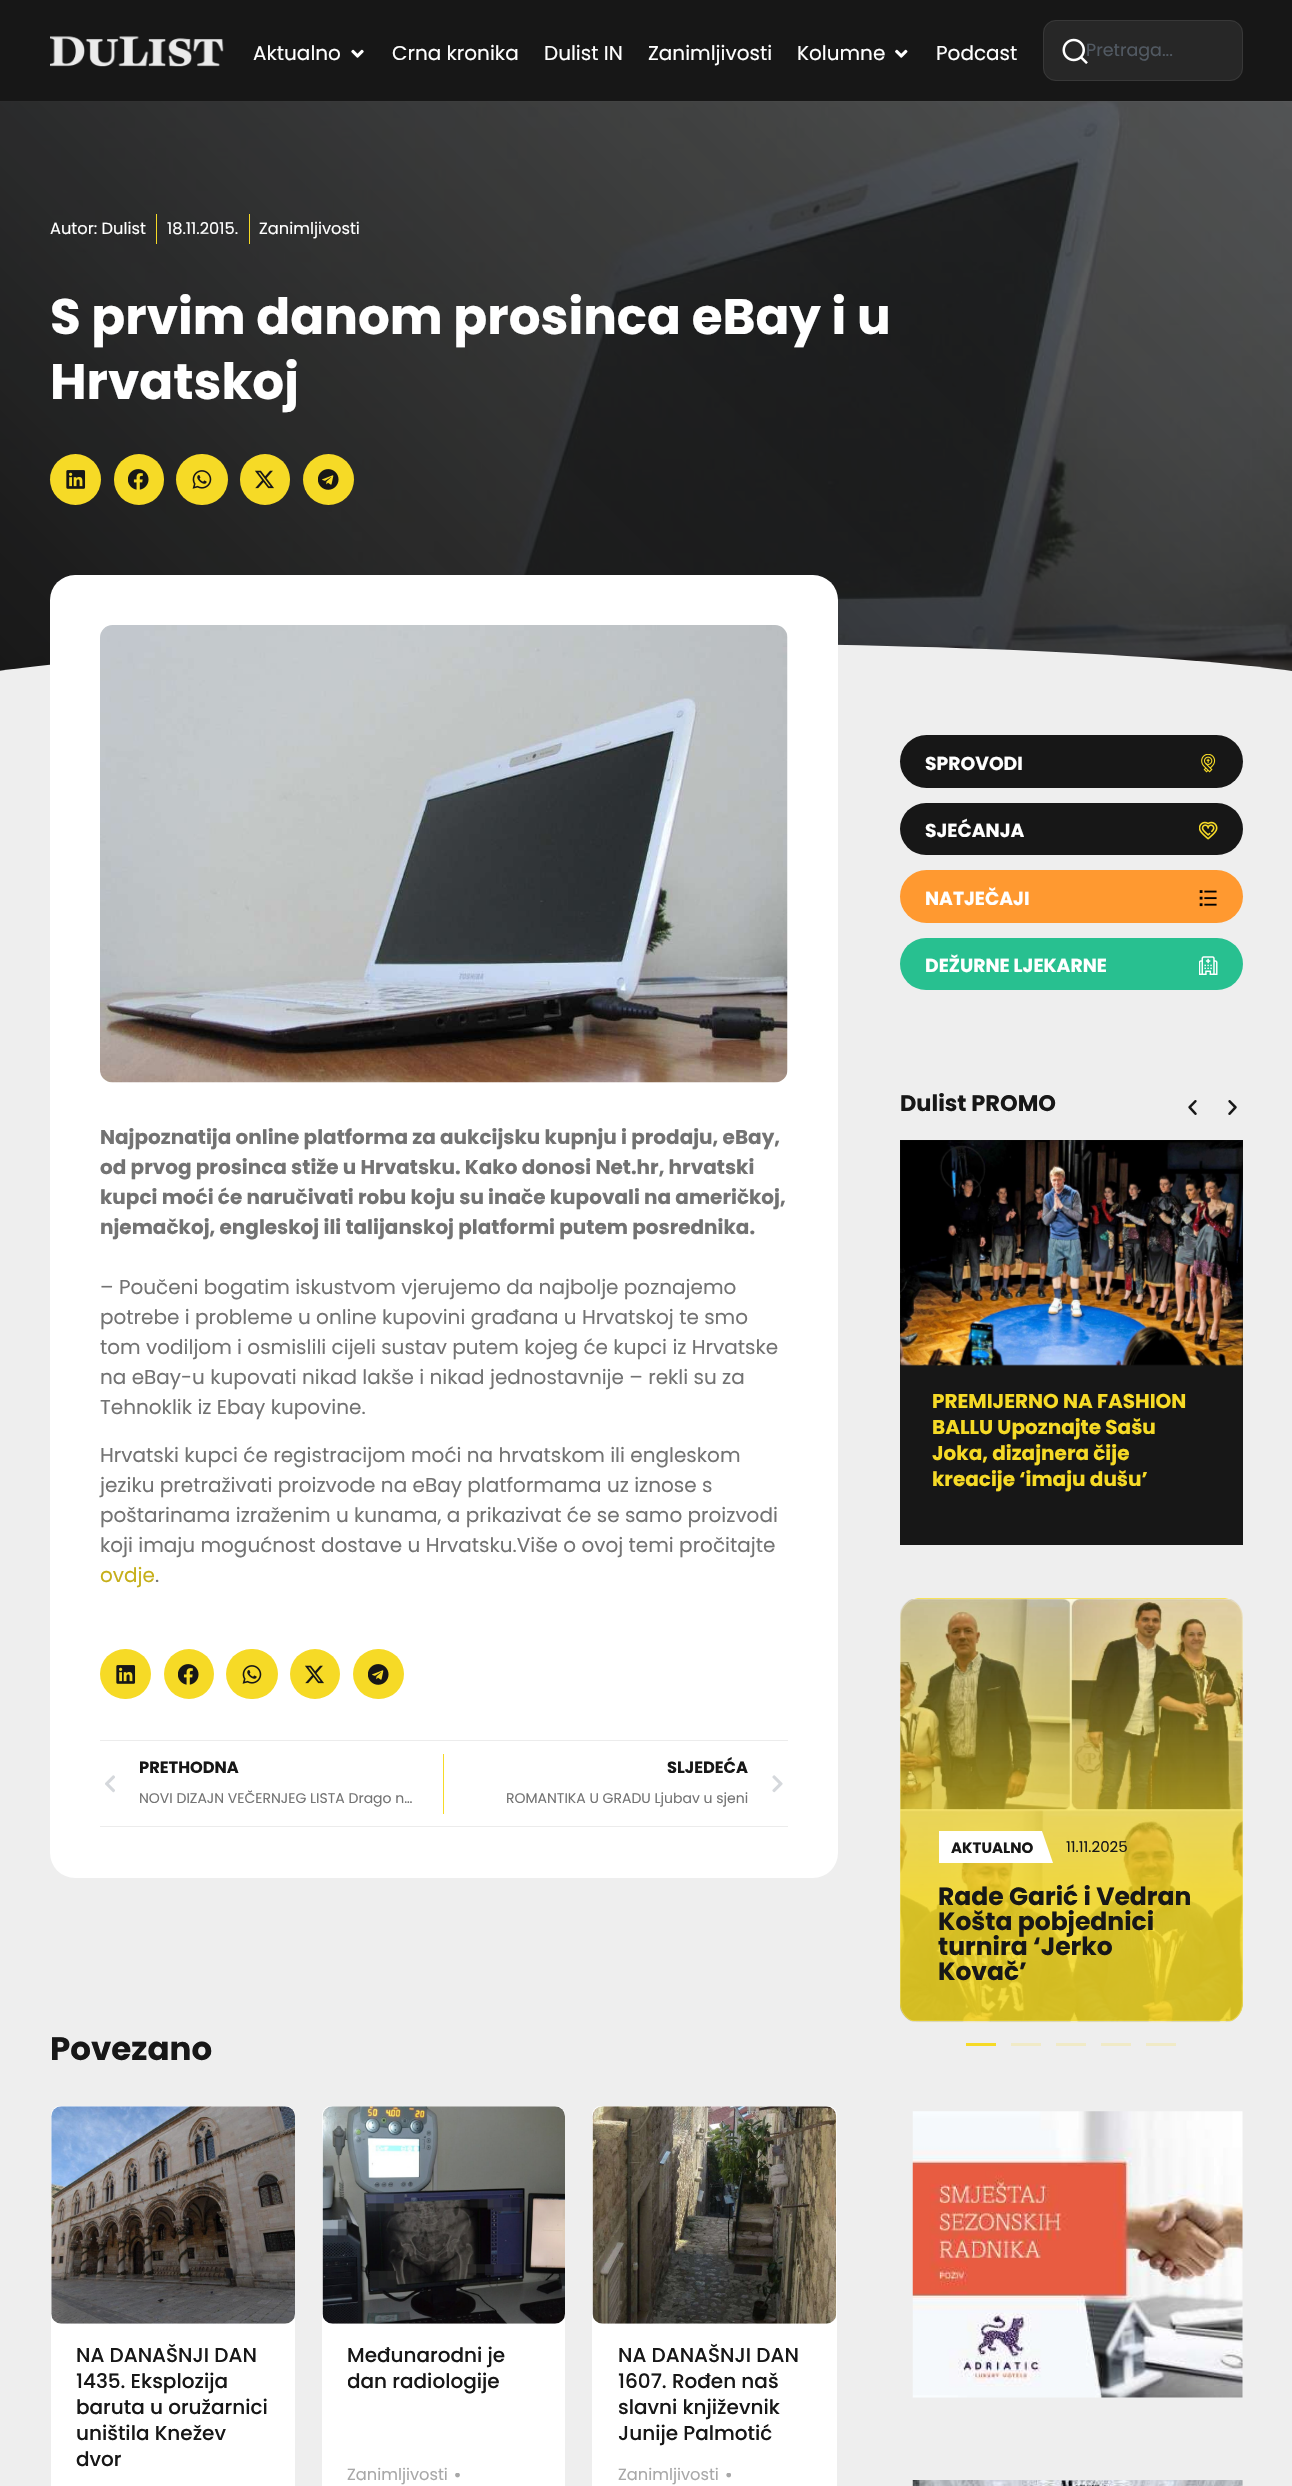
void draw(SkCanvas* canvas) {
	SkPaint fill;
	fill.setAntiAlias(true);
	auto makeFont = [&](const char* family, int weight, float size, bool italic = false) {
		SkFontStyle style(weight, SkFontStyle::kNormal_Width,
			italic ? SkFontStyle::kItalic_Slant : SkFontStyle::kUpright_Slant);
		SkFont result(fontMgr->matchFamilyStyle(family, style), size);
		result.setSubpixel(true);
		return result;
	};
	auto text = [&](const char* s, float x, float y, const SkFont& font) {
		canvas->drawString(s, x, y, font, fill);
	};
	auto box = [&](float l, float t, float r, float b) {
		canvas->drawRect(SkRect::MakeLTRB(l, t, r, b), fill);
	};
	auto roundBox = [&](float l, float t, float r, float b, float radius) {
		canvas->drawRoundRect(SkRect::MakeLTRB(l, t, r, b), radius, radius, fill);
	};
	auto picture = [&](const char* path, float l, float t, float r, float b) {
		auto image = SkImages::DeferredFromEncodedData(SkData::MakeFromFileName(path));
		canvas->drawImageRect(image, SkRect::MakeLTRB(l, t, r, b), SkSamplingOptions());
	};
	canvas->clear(0xFFEEEEEE);
	fill.setColor(0xFF171717);
	box(0, 0, 1292, 101);
	picture("image0.png", 50, 36, 224, 67);
	picture("image1.png", 351, 49, 364, 58);
	picture("image2.png", 895, 49, 908, 58);
	fill.setColor(0xFF272727);
	roundBox(1043, 20, 1243, 81, 13);
	fill.setStyle(SkPaint::kStroke_Style);
	fill.setStrokeWidth(1);
	fill.setColor(0x14FFFFFF);
	canvas->drawRoundRect(SkRect::MakeLTRB(1043.5f, 20.5f, 1242.5f, 80.5f), 12.5f, 12.5f, fill);
	picture("image4.png", 0, 101, 1292, 671);
	fill.setStyle(SkPaint::kFill_Style);
	{
		const SkColor colors[] = {0xFF171717, 0xA3171717};
		const float stops[] = {0, 1};
		const SkPoint ends[] = {{177, 862}, {1115, -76}};
		fill.setShader(SkGradientShader::MakeLinear(ends, colors, stops, 2, SkTileMode::kClamp));
		fill.setAlpha(255);
	}
	box(0, 101, 1292, 671);
	fill.setShader(nullptr);
	fill.setColor(0xFFF6DA26);
	box(156, 214, 157, 244);
	box(249, 214, 250, 244);
	canvas->drawCircle(75.5f, 479.5f, 25.5f, fill);
	picture("image5.png", 66, 470, 86, 489);
	roundBox(114, 454, 164, 505, 25);
	picture("image6.png", 128, 469, 149, 490);
	roundBox(176, 454, 228, 505, 25.5f);
	picture("image7.png", 192, 470, 212, 489);
	roundBox(240, 454, 290, 505, 25);
	picture("image8.png", 255, 470, 274, 489);
	canvas->drawCircle(328.5f, 479.5f, 25.5f, fill);
	picture("image9.png", 318, 469, 339, 490);
	fill.setColor(0xFFEEEEEE);
	canvas->drawPath(SkPathBuilder().moveTo(-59, 684).lineTo(-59, 686).lineTo(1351, 686).lineTo(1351, 684).cubicTo(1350, 676, 1173, 644, 646, 643).cubicTo(120, 643, -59, 676, -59, 684).close().detach(), fill);
	fill.setColor(0xFFFFFFFF);
	roundBox(50, 575, 838, 1878, 25);
	picture("image10.png", 100, 625, 788, 1083);
	fill.setColor(0xFFF6DA26);
	roundBox(100, 1649, 151, 1699, 25);
	picture("image5.png", 116, 1665, 136, 1684);
	canvas->drawCircle(189, 1674, 25, fill);
	picture("image6.png", 178, 1664, 199, 1685);
	roundBox(226, 1649, 278, 1699, 25);
	picture("image7.png", 242, 1665, 262, 1684);
	canvas->drawCircle(315, 1674, 25, fill);
	picture("image8.png", 305, 1665, 324, 1684);
	roundBox(353, 1649, 404, 1699, 25);
	picture("image9.png", 368, 1664, 389, 1685);
	fill.setColor(0xFFECECEC);
	box(100, 1740, 788, 1741);
	box(100, 1826, 788, 1827);
	picture("image11.png", 105, 1775, 115, 1793);
	fill.setColor(0xFFF6DA26);
	box(443, 1754, 444, 1814);
	picture("image12.png", 772, 1775, 783, 1793);
	fill.setColor(0xFFFFFFFF);
	canvas->drawRoundRect(SkRect::MakeLTRB(50.5f, 2105.5f, 295.5f, 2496.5f), 9.5f, 9.5f, fill);
	fill.setStyle(SkPaint::kStroke_Style);
	fill.setColor(0xFFEEEEEE);
	canvas->drawRoundRect(SkRect::MakeLTRB(50.5f, 2105.5f, 295.5f, 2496.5f), 9.5f, 9.5f, fill);
	picture("image13.png", 51, 2106, 295, 2324);
	fill.setStyle(SkPaint::kFill_Style);
	fill.setColor(0xFFFFFFFF);
	canvas->drawRoundRect(SkRect::MakeLTRB(321.5f, 2105.5f, 565.5f, 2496.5f), 9.5f, 9.5f, fill);
	fill.setStyle(SkPaint::kStroke_Style);
	fill.setColor(0xFFEEEEEE);
	canvas->drawRoundRect(SkRect::MakeLTRB(321.5f, 2105.5f, 565.5f, 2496.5f), 9.5f, 9.5f, fill);
	picture("image14.png", 322, 2106, 565, 2324);
	picture("image15.png", 455, 2473, 460, 2478);
	fill.setStyle(SkPaint::kFill_Style);
	fill.setColor(0xFFFFFFFF);
	canvas->drawRoundRect(SkRect::MakeLTRB(591.5f, 2105.5f, 837.5f, 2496.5f), 9.5f, 9.5f, fill);
	fill.setStyle(SkPaint::kStroke_Style);
	fill.setColor(0xFFEEEEEE);
	canvas->drawRoundRect(SkRect::MakeLTRB(591.5f, 2105.5f, 837.5f, 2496.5f), 9.5f, 9.5f, fill);
	picture("image16.png", 592, 2106, 837, 2324);
	picture("image17.png", 726, 2473, 731, 2478);
	fill.setStyle(SkPaint::kFill_Style);
	fill.setColor(0xFF171717);
	roundBox(900, 735, 1243, 788, 26.5f);
	picture("image18.png", 1201, 754, 1216, 773);
	roundBox(900, 803, 1243, 855, 26);
	picture("image19.png", 1199, 821, 1218, 840);
	fill.setColor(0xFFFF9930);
	roundBox(900, 870, 1243, 923, 26.5f);
	picture("image20.png", 1199, 890, 1217, 907);
	fill.setColor(0xFF28C090);
	roundBox(900, 938, 1243, 990, 26);
	picture("image21.png", 1199, 956, 1218, 975);
	picture("image22.png", 1188, 1100, 1197, 1115);
	picture("image23.png", 1228, 1100, 1237, 1115);
	fill.setColor(0xFF171717);
	box(900, 1140, 1243, 1545);
	picture("image24.png", 900, 1140, 1243, 1366);
	picture("image25.png", 900, 1598, 1243, 2022);
	fill.setStyle(SkPaint::kStroke_Style);
	fill.setColor(0x1CFFFFFF);
	canvas->drawRoundRect(SkRect::MakeLTRB(900.5f, 1598.5f, 1242.5f, 2022.5f), 19.5f, 19.5f, fill);
	canvas->save();
	canvas->clipPath(SkPathBuilder().moveTo(920, 1598).lineTo(1223, 1598).cubicTo(1234, 1598, 1243, 1607, 1243, 1618).lineTo(1243, 2003).cubicTo(1243, 2014, 1234, 2023, 1223, 2023).lineTo(920, 2023).cubicTo(909, 2023, 900, 2014, 900, 2003).lineTo(900, 1618).cubicTo(900, 1607, 909, 1598, 920, 1598).close().detach(), true);
	fill.setStyle(SkPaint::kFill_Style);
	{
		const SkColor colors[] = {0x1FF6DA26, 0xD9F6DA26};
		const float stops[] = {0, 0.71f};
		const SkPoint ends[] = {{1071, 1176}, {1071, 1599}};
		fill.setShader(SkGradientShader::MakeLinear(ends, colors, stops, 2, SkTileMode::kClamp));
		fill.setAlpha(255);
	}
	box(914, 1598, 1229, 1599);
	{
		const SkColor colors[] = {0x1FF6DA26, 0xD9F6DA26};
		const float stops[] = {0, 0.71f};
		const SkPoint ends[] = {{1071, 1599}, {1071, 2021}};
		fill.setShader(SkGradientShader::MakeLinear(ends, colors, stops, 2, SkTileMode::kClamp));
		fill.setAlpha(255);
	}
	box(900, 1599, 1243, 2021);
	{
		const SkColor colors[] = {0x1FF6DA26, 0xD9F6DA26};
		const float stops[] = {0, 0.71f};
		const SkPoint ends[] = {{1071, 2021}, {1071, 2444}};
		fill.setShader(SkGradientShader::MakeLinear(ends, colors, stops, 2, SkTileMode::kClamp));
		fill.setAlpha(255);
	}
	box(912, 2021, 1231, 2023);
	canvas->restore();
	fill.setStyle(SkPaint::kStroke_Style);
	fill.setShader(nullptr);
	fill.setColor(0x1CFFFFFF);
	canvas->drawRoundRect(SkRect::MakeLTRB(900.5f, 1598.5f, 1242.5f, 2022.5f), 19.5f, 19.5f, fill);
	fill.setStyle(SkPaint::kFill_Style);
	fill.setColor(0xFFFFFFFF);
	canvas->drawPath(SkPathBuilder().moveTo(939, 1831).lineTo(1042, 1831).lineTo(1053, 1863).lineTo(939, 1863).close().detach(), fill);
	fill.setColor(0xFFF6DA26);
	box(966, 2043, 996, 2046);
	fill.setColor(0xFFF0EAC6);
	box(1011, 2043, 1041, 2046);
	box(1056, 2043, 1086, 2046);
	box(1101, 2043, 1131, 2046);
	box(1146, 2043, 1176, 2046);
	picture("image26.png", 912, 2111, 1243, 2398);
	picture("image27.png", 912, 2480, 1243, 2486);
	auto font1 = makeFont("Poppins", 400, 20);
	fill.setColor(0xFFFFFFFF);
	text("Aktualno", 253, 60, font1);
	text("Crna kronika", 392, 60, font1);
	text("Dulist IN", 544, 60, font1);
	text("Zanimljivosti", 648, 60, font1);
	text("Kolumne", 797, 60, font1);
	text("Podcast", 936, 60, font1);
	auto font2 = makeFont("Poppins", 400, 17.5f);
	fill.setColor(0xFF515962);
	text("Pretraga...", 1086, 56, font2);
	picture("image3.png", 1062, 38, 1088, 64);
	auto font3 = makeFont("Poppins", 400, 16.25f);
	fill.setColor(0xFFFFFFFF);
	text("Autor: Dulist", 50, 234, font3);
	text("18.11.2015.", 167, 234, font3);
	text("Zanimljivosti", 259, 234, font3);
	auto font4 = makeFont("Poppins", 700, 50);
	text("S prvim danom prosinca eBay i u", 50, 334, font4);
	text("Hrvatskoj", 50, 399, font4);
	auto font5 = makeFont("Poppins", 700, 20);
	fill.setColor(0xFF737373);
	text("Najpoznatija online platforma za aukcijsku kupnju i prodaju, eBay,", 100, 1144, font5);
	text("od prvog prosinca stiže u Hrvatsku. Kako donosi Net.hr, hrvatski", 100, 1174, font5);
	text("kupci moći će naručivati robu koju su inače kupovali na američkoj,", 100, 1204, font5);
	text("njemačkoj, engleskoj ili talijanskoj platformi putem posrednika.", 100, 1234, font5);
	text("– Poučeni bogatim iskustvom vjerujemo da najbolje poznajemo", 100, 1294, font1);
	text("potrebe i probleme u online kupovini građana u Hrvatskoj te smo", 100, 1324, font1);
	text("tom vodiljom i osmislili cijeli sustav putem kojeg će kupci iz Hrvatske", 100, 1354, font1);
	text("na eBay-u kupovati nikad lakše i nikad jednostavnije – rekli su za", 100, 1384, font1);
	text("Tehnoklik iz Ebay kupovine.", 100, 1414, font1);
	text("Hrvatski kupci će registracijom moći na hrvatskom ili engleskom", 100, 1462, font1);
	text("jeziku pretraživati proizvode na eBay platformama uz iznose s", 100, 1492, font1);
	text("poštarinama izraženim u kunama, a prikazivat će se samo proizvodi", 100, 1522, font1);
	text("koji imaju mogućnost dostave u Hrvatsku.Više o ovoj temi pročitajte", 100, 1552, font1);
	fill.setColor(0xFFC6AF19);
	text("ovdje", 100, 1582, font1);
	fill.setColor(0xFF737373);
	text(".", 155, 1582, font1);
	auto font6 = makeFont("Poppins", 700, 16.25f);
	fill.setColor(0xFF171717);
	text("PRETHODNA", 139, 1773, font6);
	auto font7 = makeFont("Poppins", 400, 14);
	fill.setColor(0xFF737373);
	text("NOVI DIZAJN VEČERNJEG LISTA Drago n…", 139, 1803, font7);
	fill.setColor(0xFF171717);
	text("SLJEDEĆA", 667, 1773, font6);
	fill.setColor(0xFF737373);
	text("ROMANTIKA U GRADU Ljubav u sjeni", 506, 1803, font7);
	auto font8 = makeFont("Poppins", 700, 32.5f);
	fill.setColor(0xFF171717);
	text("Povezano", 50, 2060, font8);
	auto font9 = makeFont("Poppins", 500, 20);
	text("NA DANAŠNJI DAN", 76, 2362, font9);
	text("1435. Eksplozija", 76, 2388, font9);
	text("baruta u oružarnici", 76, 2414, font9);
	text("uništila Knežev", 76, 2440, font9);
	text("dvor", 76, 2466, font9);
	text("Međunarodni je", 347, 2362, font9);
	canvas->save();
	canvas->clipRect(SkRect::MakeLTRB(348, 2344, 540, 2448));
	text("dan radiologije", 347, 2388, font9);
	canvas->restore();
	fill.setColor(0xFFA8A8A8);
	text("Zanimljivosti", 347, 2480, font3);
	fill.setColor(0xFF171717);
	text("NA DANAŠNJI DAN", 618, 2362, font9);
	text("1607. Rođen naš", 618, 2388, font9);
	text("slavni književnik", 618, 2414, font9);
	text("Junije Palmotić", 618, 2440, font9);
	fill.setColor(0xFFA8A8A8);
	text("Zanimljivosti", 618, 2480, font3);
	auto font10 = makeFont("Poppins", 700, 18.75f);
	fill.setColor(0xFFFFFFFF);
	text("SPROVODI", 925, 770, font10);
	text("SJEĆANJA", 925, 837, font10);
	text("NATJEČAJI", 925, 905, font10);
	text("DEŽURNE LJEKARNE", 925, 972, font10);
	auto font11 = makeFont("Poppins", 700, 22.5f);
	fill.setColor(0xFF171717);
	text("Dulist PROMO", 900, 1111, font11);
	fill.setColor(0xFFF6DA26);
	text("PREMIJERNO NA FASHION", 932, 1408, font5);
	text("BALLU Upoznajte Sašu", 932, 1434, font5);
	text("Joka, dizajnera čije", 932, 1460, font5);
	text("kreacije ‘imaju dušu’", 932, 1486, font5);
	auto font12 = makeFont("Poppins", 700, 15);
	fill.setColor(0xFF171717);
	text("AKTUALNO", 951, 1853, font12);
	auto font13 = makeFont("Poppins", 400, 15);
	text("11.11.2025", 1066, 1852, font13);
	auto font14 = makeFont("Poppins", 700, 25);
	text("Rade Garić i Vedran", 938, 1905, font14);
	text("Košta pobjednici", 938, 1930, font14);
	text("turnira ‘Jerko", 938, 1955, font14);
	text("Kovač’", 938, 1980, font14);
}
